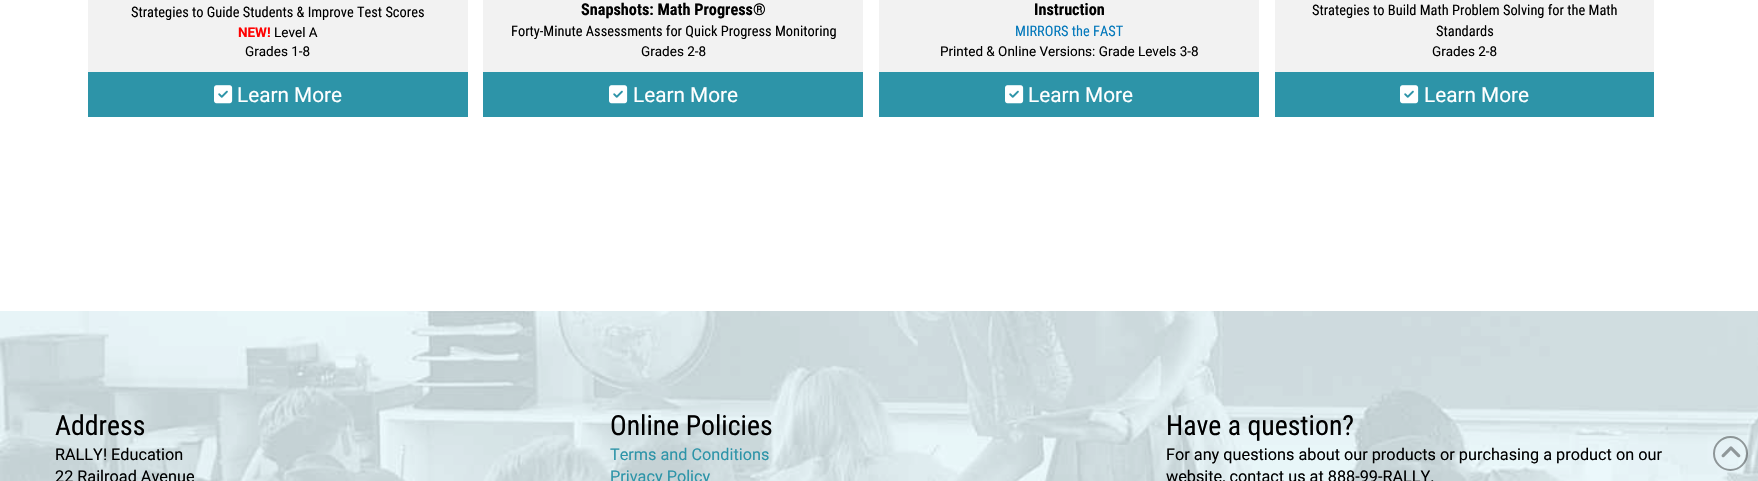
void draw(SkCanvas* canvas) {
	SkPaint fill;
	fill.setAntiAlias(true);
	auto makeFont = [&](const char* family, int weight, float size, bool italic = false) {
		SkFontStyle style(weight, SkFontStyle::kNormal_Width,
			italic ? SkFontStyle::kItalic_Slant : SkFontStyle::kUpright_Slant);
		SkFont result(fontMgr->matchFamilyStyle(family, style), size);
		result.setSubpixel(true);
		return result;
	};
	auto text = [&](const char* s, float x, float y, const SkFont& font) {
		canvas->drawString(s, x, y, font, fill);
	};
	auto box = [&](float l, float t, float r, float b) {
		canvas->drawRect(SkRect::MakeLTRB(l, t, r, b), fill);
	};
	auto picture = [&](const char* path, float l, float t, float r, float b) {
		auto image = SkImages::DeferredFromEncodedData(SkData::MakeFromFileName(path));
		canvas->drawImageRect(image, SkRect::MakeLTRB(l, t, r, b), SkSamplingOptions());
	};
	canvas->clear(0xFFFFFFFF);
	fill.setColor(0xFFF2F2F2);
	box(88, 0, 468, 72);
	fill.setColor(0xFF2D94A8);
	box(88, 72, 468, 117);
	picture("image0.png", 214, 85, 233, 104);
	fill.setColor(0xFFF2F2F2);
	box(483, 0, 863, 72);
	fill.setColor(0xFF2D94A8);
	box(483, 72, 863, 117);
	picture("image0.png", 609, 85, 628, 104);
	fill.setColor(0xFFF2F2F2);
	box(879, 0, 1259, 72);
	fill.setColor(0xFF2D94A8);
	box(879, 72, 1259, 117);
	picture("image0.png", 1005, 85, 1024, 104);
	fill.setColor(0xFFF2F2F2);
	box(1275, 0, 1654, 72);
	fill.setColor(0xFF2D94A8);
	box(1275, 72, 1654, 117);
	picture("image0.png", 1400, 85, 1419, 104);
	picture("image1.png", 0, 311, 1758, 481);
	fill.setStyle(SkPaint::kStroke_Style);
	fill.setStrokeWidth(2);
	fill.setColor(0x61000000);
	canvas->drawCircle(1730.5f, 453.5f, 16.5f, fill);
	picture("image2.png", 1721, 446, 1741, 458);
	auto font1 = makeFont("Roboto Condensed", 400, 14.4f);
	fill.setStyle(SkPaint::kFill_Style);
	fill.setColor(0xFF000000);
	text("Strategies to Guide Students & Improve Test Scores", 131, 17, font1);
	auto font2 = makeFont("Roboto", 700, 13.5f);
	fill.setColor(0xFFFF0000);
	text("NEW!", 238, 37, font2);
	auto font3 = makeFont("Roboto", 400, 13.5f);
	fill.setColor(0xFF000000);
	text("Level A", 274, 37, font3);
	text("Grades 1-8", 245, 56, font3);
	auto font4 = makeFont("Roboto", 400, 20.75f);
	fill.setColor(0xFFFFFFFF);
	text("Learn More", 237, 102, font4);
	auto font5 = makeFont("Roboto Condensed", 700, 16.25f);
	fill.setColor(0xFF000000);
	text("Snapshots: Math Progress®", 581, 15, font5);
	text("Forty-Minute Assessments for Quick Progress Monitoring", 511, 36, font1);
	text("Grades 2-8", 641, 56, font3);
	fill.setColor(0xFFFFFFFF);
	text("Learn More", 633, 102, font4);
	fill.setColor(0xFF000000);
	text("Instruction", 1034, 15, font5);
	fill.setColor(0xFF0378BB);
	text("MIRRORS the FAST", 1015, 36, font1);
	fill.setColor(0xFF000000);
	text("Printed & Online Versions: Grade Levels 3-8", 940, 56, font3);
	fill.setColor(0xFFFFFFFF);
	text("Learn More", 1028, 102, font4);
	fill.setColor(0xFF000000);
	text("Strategies to Build Math Problem Solving for the Math", 1312, 15, font1);
	text("Standards", 1436, 36, font1);
	text("Grades 2-8", 1432, 56, font3);
	fill.setColor(0xFFFFFFFF);
	text("Learn More", 1424, 102, font4);
	auto font6 = makeFont("Roboto Condensed", 400, 27.75f);
	fill.setColor(0xFF000000);
	text("Address", 55, 435, font6);
	auto font7 = makeFont("Roboto", 400, 16.25f);
	text("RALLY! Education", 55, 460, font7);
	text("22 Railroad Avenue", 55, 482, font7);
	text("Online Policies", 610, 435, font6);
	fill.setColor(0xFF2D94A8);
	text("Terms and Conditions", 610, 460, font7);
	text("Privacy Policy", 610, 482, font7);
	fill.setColor(0xFF000000);
	text("Have a question?", 1166, 435, font6);
	text("For any questions about our products or purchasing a product on our", 1166, 460, font7);
	text("website, contact us at 888-99-RALLY.", 1166, 482, font7);
}
